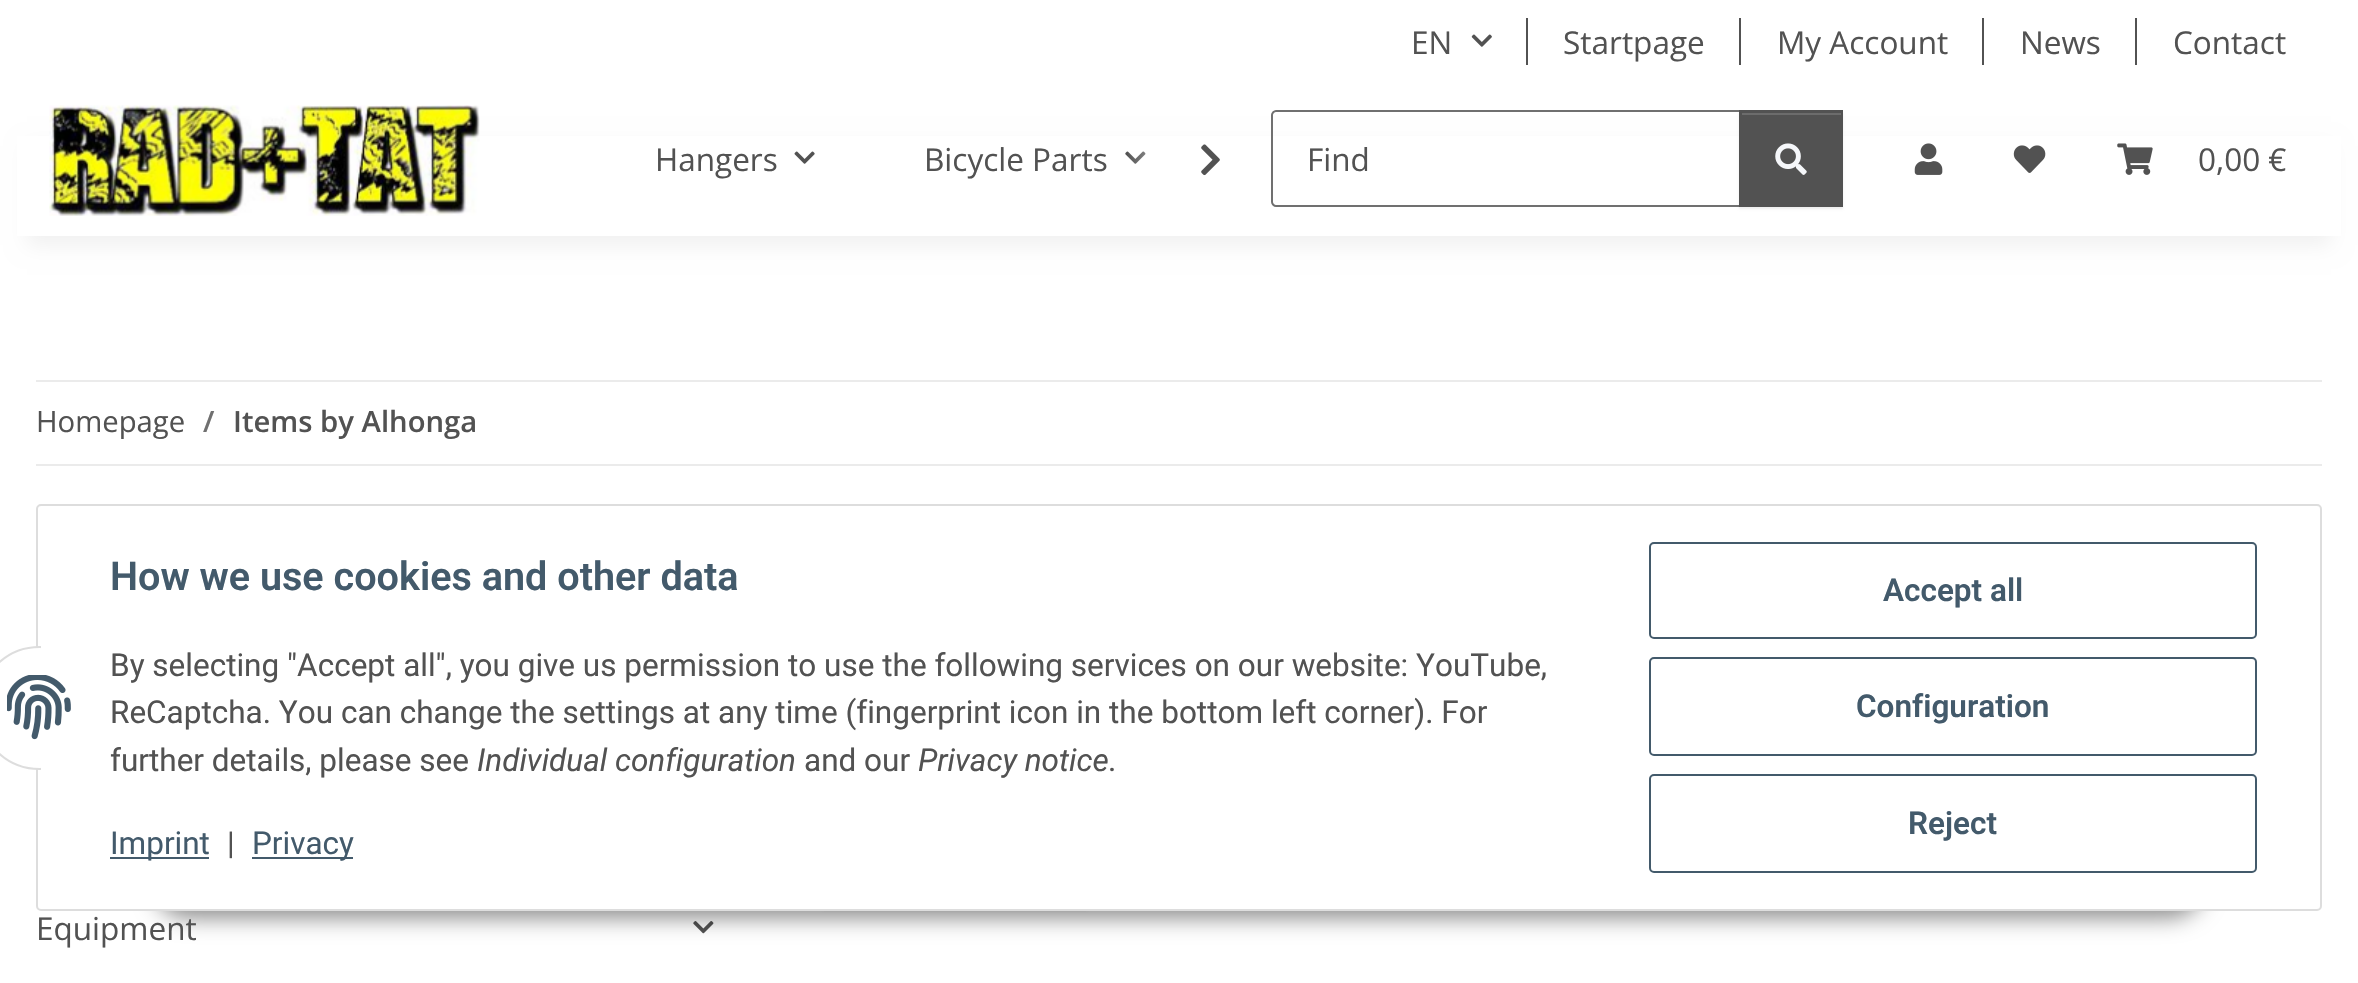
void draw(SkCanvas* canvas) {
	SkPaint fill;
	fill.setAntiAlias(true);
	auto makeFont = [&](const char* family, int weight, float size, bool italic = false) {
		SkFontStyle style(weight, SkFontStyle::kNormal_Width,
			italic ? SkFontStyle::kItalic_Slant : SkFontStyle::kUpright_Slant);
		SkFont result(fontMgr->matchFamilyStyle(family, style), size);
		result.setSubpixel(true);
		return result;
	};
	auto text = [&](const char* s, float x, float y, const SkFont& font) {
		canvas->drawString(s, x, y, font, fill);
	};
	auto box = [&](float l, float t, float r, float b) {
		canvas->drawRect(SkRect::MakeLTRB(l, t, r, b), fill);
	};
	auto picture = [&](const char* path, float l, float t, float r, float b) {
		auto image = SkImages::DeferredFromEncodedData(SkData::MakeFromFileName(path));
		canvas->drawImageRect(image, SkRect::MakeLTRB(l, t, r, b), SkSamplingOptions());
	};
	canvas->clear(0xFFFFFFFF);
	picture("image0.png", 1471, 34, 1492, 47);
	fill.setColor(0xFF525252);
	box(1526, 18, 1528, 65);
	box(1739, 18, 1741, 65);
	box(1982, 18, 1984, 65);
	box(2135, 18, 2137, 65);
	fill.setColor(0x0F000000);
	fill.setMaskFilter(SkMaskFilter::MakeBlur(kNormal_SkBlurStyle, 10));
	canvas->drawRect(SkRect::MakeLTRB(27, 146, 2331, 245), fill);
	fill.setMaskFilter(nullptr);
	fill.setColor(0xFFFFFFFF);
	box(17, 136, 2341, 236);
	picture("image1.png", 49, 105, 480, 216);
	picture("image2.png", 794, 151, 815, 164);
	picture("image3.png", 1125, 151, 1146, 164);
	{
		const SkColor colors[] = {0x03FFFFFF, 0xFFFFFFFF};
		const float stops[] = {0, 0.7f};
		const SkPoint ends[] = {{1127, 160}, {1235, 160}};
		fill.setShader(SkGradientShader::MakeLinear(ends, colors, stops, 2, SkTileMode::kClamp));
		fill.setAlpha(255);
	}
	box(1128, 151, 1146, 164);
	picture("image4.png", 1201, 144, 1220, 176);
	fill.setStyle(SkPaint::kStroke_Style);
	fill.setStrokeWidth(2);
	fill.setShader(nullptr);
	fill.setColor(0xFF707070);
	canvas->drawPath(SkPathBuilder().moveTo(1276, 111).lineTo(1741, 111).lineTo(1741, 206).lineTo(1276, 206).cubicTo(1274, 206, 1272, 204, 1272, 202).lineTo(1272, 115).cubicTo(1272, 113, 1274, 111, 1276, 111).close().detach(), fill);
	fill.setStyle(SkPaint::kFill_Style);
	fill.setColor(0x12000000);
	fill.setMaskFilter(SkMaskFilter::MakeBlur(kNormal_SkBlurStyle, 1));
	canvas->drawRect(SkRect::MakeLTRB(1739, 113, 1843, 209), fill);
	fill.setMaskFilter(nullptr);
	fill.setColor(0xFF525252);
	box(1739, 110, 1843, 207);
	fill.setColor(0xFF6C6C6C);
	box(1742, 113, 1841, 115);
	picture("image5.png", 1775, 143, 1807, 175);
	picture("image6.png", 1914, 143, 1943, 175);
	picture("image7.png", 2013, 145, 2046, 173);
	picture("image8.png", 2117, 143, 2153, 175);
	fill.setColor(0xFFEBEBEB);
	box(36, 380, 2322, 382);
	box(36, 464, 2322, 466);
	fill.setColor(0x12000000);
	fill.setMaskFilter(SkMaskFilter::MakeBlur(kNormal_SkBlurStyle, 1));
	canvas->drawRoundRect(SkRect::MakeLTRB(821, 815, 1089, 911), 5, 5, fill);
	fill.setMaskFilter(nullptr);
	picture("image9.png", 693, 921, 714, 934);
	fill.setColor(0x73000000);
	fill.setMaskFilter(SkMaskFilter::MakeBlur(kNormal_SkBlurStyle, 11));
	canvas->drawRoundRect(SkRect::MakeLTRB(153, 846, 2205, 918), 36, 36, fill);
	fill.setMaskFilter(nullptr);
	fill.setColor(0xFFFFFFFF);
	canvas->drawRoundRect(SkRect::MakeLTRB(37, 505, 2321, 910), 4, 4, fill);
	fill.setStyle(SkPaint::kStroke_Style);
	fill.setColor(0xFFDDDDDD);
	canvas->drawRoundRect(SkRect::MakeLTRB(37, 505, 2321, 910), 4, 4, fill);
	fill.setStyle(SkPaint::kFill_Style);
	fill.setColor(0xFFFFFFFF);
	canvas->drawRoundRect(SkRect::MakeLTRB(-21, 647, 100, 769), 60.5f, 60.5f, fill);
	fill.setStyle(SkPaint::kStroke_Style);
	fill.setColor(0xFFDDDDDD);
	canvas->drawRoundRect(SkRect::MakeLTRB(-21, 647, 100, 769), 60.5f, 60.5f, fill);
	fill.setStyle(SkPaint::kFill_Style);
	fill.setColor(0xFFFFFFFF);
	box(41, 646, 101, 770);
	picture("image10.png", 7, 675, 71, 740);
	fill.setColor(0xFF435A6B);
	box(110, 857, 209, 859);
	box(252, 857, 353, 859);
	fill.setStyle(SkPaint::kStroke_Style);
	canvas->drawRoundRect(SkRect::MakeLTRB(1650, 543, 2256, 638), 4, 4, fill);
	canvas->drawRoundRect(SkRect::MakeLTRB(1650, 658, 2256, 755), 4, 4, fill);
	canvas->drawRoundRect(SkRect::MakeLTRB(1650, 775, 2256, 872), 4, 4, fill);
	auto font1 = makeFont("Open Sans", 400, 31.5f);
	fill.setStyle(SkPaint::kFill_Style);
	fill.setColor(0xFF525252);
	text("EN", 1411, 54, font1);
	text("Startpage", 1563, 54, font1);
	text("My Account", 1777, 54, font1);
	text("News", 2020, 54, font1);
	text("Contact", 2173, 54, font1);
	text("Hangers", 655, 171, font1);
	text("Bicycle Parts", 924, 171, font1);
	text("Find", 1307, 171, font1);
	text("0,00 €", 2198, 171, font1);
	auto font2 = makeFont("Open Sans", 400, 29.25f);
	text("Homepage", 36, 432, font2);
	auto font3 = makeFont("Open Sans", 600, 29.25f);
	fill.setColor(0xFF707070);
	text("/", 203, 432, font3);
	fill.setColor(0xFF525252);
	text("Items by Alhonga", 233, 432, font3);
	text("Equipment", 36, 940, font1);
	auto font4 = makeFont("Roboto", 600, 39.6f);
	fill.setColor(0xFF435A6B);
	text("How we use cookies and other data", 110, 590, font4);
	auto font5 = makeFont("Roboto", 400, 31.5f);
	fill.setColor(0xFF525252);
	text("By selecting \"Accept all\", you give us permission to use the following services on our website: YouTube,", 110, 676, font5);
	text("ReCaptcha. You can change the settings at any time (fingerprint icon in the bottom left corner). For", 110, 723, font5);
	text("further details, please see", 110, 771, font5);
	auto font6 = makeFont("Roboto", 400, 31.5f, true);
	text("Individual configuration", 477, 771, font6);
	text("and our", 804, 771, font5);
	text("Privacy notice", 918, 771, font6);
	text(".", 1108, 771, font5);
	fill.setColor(0xFF435A6B);
	text("Imprint", 110, 854, font5);
	fill.setColor(0xFF525252);
	text("|", 227, 854, font5);
	fill.setColor(0xFF435A6B);
	text("Privacy", 252, 854, font5);
	auto font7 = makeFont("Roboto", 600, 31.5f);
	text("Accept all", 1883, 601, font7);
	text("Configuration", 1856, 717, font7);
	text("Reject", 1908, 834, font7);
}
